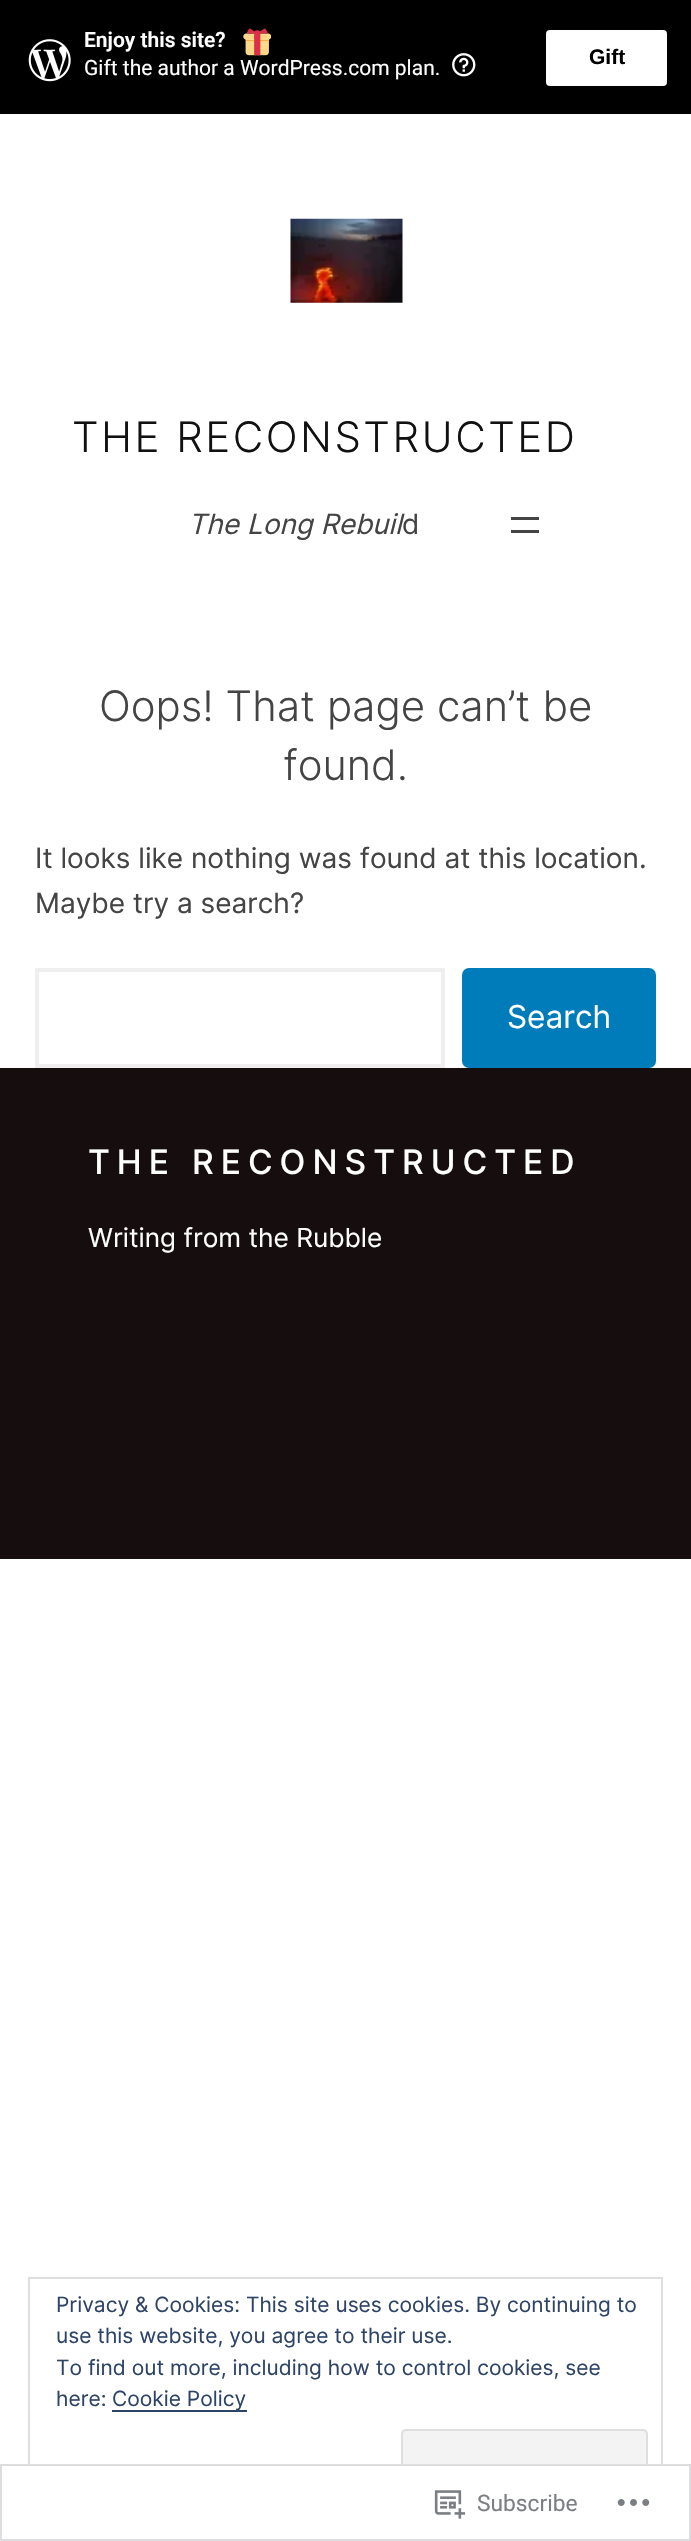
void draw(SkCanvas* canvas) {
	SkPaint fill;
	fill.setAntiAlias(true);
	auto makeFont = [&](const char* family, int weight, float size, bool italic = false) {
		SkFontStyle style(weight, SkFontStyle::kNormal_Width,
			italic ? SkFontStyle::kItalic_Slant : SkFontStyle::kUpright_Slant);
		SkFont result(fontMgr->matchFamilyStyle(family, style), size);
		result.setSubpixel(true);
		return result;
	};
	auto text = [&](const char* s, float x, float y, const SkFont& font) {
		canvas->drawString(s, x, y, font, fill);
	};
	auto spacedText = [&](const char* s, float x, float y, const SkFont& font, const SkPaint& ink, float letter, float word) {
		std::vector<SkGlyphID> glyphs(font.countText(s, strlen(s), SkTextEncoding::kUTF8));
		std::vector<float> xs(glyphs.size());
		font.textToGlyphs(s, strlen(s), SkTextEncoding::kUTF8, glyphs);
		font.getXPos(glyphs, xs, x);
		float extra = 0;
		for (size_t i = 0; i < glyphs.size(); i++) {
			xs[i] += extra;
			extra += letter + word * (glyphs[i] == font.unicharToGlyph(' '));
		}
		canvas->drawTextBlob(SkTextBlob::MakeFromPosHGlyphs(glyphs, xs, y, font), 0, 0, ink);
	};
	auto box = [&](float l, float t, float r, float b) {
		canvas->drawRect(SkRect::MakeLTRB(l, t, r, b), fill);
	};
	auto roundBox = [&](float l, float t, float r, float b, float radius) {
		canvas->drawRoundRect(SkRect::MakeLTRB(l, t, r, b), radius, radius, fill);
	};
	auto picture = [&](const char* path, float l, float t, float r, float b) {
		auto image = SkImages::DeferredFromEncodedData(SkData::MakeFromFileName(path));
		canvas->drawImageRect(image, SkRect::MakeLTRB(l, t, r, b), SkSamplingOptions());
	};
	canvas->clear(0xFFFFFFFF);
	fill.setColor(0xFF000000);
	box(0, 0, 691, 114);
	picture("image0.png", 28, 39, 71, 82);
	picture("image1.png", 243, 28, 271, 56);
	picture("image2.png", 452, 53, 476, 77);
	fill.setColor(0xFFFFFFFF);
	roundBox(546, 30, 667, 86, 4);
	picture("image3.png", 290, 218, 403, 303);
	fill.setColor(0xFF444444);
	box(511, 517, 539, 520);
	box(511, 530, 539, 533);
	fill.setStyle(SkPaint::kStroke_Style);
	fill.setStrokeWidth(4);
	fill.setColor(0xFFEFEFEF);
	canvas->drawRect(SkRect::MakeLTRB(37, 970, 443, 1066), fill);
	fill.setStyle(SkPaint::kFill_Style);
	fill.setColor(0xFF007CBA);
	roundBox(462, 968, 656, 1068, 7);
	fill.setColor(0xFF160E0E);
	box(0, 1068, 691, 1559);
	fill.setStyle(SkPaint::kStroke_Style);
	fill.setStrokeWidth(2);
	fill.setColor(0xFFDEDEDE);
	canvas->drawRect(SkRect::MakeLTRB(29, 2278, 662, 2512), fill);
	fill.setStyle(SkPaint::kFill_Style);
	fill.setColor(0xFF2E4467);
	box(112, 2410, 247, 2412);
	fill.setColor(0xFFF3F3F3);
	canvas->drawRoundRect(SkRect::MakeLTRB(402, 2430, 647, 2496), 4, 4, fill);
	fill.setStyle(SkPaint::kStroke_Style);
	fill.setColor(0xFFDEDEDE);
	canvas->drawRoundRect(SkRect::MakeLTRB(402, 2430, 647, 2496), 4, 4, fill);
	fill.setStyle(SkPaint::kFill_Style);
	fill.setColor(0xFAFFFFFF);
	box(28, 2464, 663, 2513);
	fill.setStyle(SkPaint::kStroke_Style);
	fill.setColor(0xFADCDCDE);
	canvas->drawRect(SkRect::MakeLTRB(1, 2465, 690, 2540), fill);
	picture("image4.png", 434, 2490, 466, 2519);
	picture("image5.png", 617, 2499, 650, 2506);
	auto font1 = makeFont("Roboto", 600, 21);
	fill.setStyle(SkPaint::kFill_Style);
	fill.setColor(0xFFFFFFFF);
	text("Enjoy this site?", 84, 47, font1);
	auto font2 = makeFont("Roboto", 400, 21);
	text("Gift the author a WordPress.com plan.", 84, 75, font2);
	auto font3 = makeFont("Liberation Sans", 700, 21);
	fill.setColor(0xFF000000);
	text("Gift", 589, 64, font3);
	auto font4 = makeFont("Inter", 300, 42);
	fill.setColor(0xFF111111);
	spacedText("THE RECONSTRUCTED", 72, 452, font4, fill, 2.5f, 0);
	auto font5 = makeFont("Inter", 400, 28, true);
	fill.setColor(0xFF444444);
	text("The Long Rebuil", 188, 534, font5);
	auto font6 = makeFont("Inter", 400, 28);
	text("d", 402, 534, font6);
	text("Oops! That page can’t be", 99, 721, font4);
	text("found.", 283, 780, font4);
	text("It looks like nothing was found at this location.", 35, 868, font6);
	text("Maybe try a search?", 35, 913, font6);
	auto font7 = makeFont("Inter", 400, 31.5f);
	fill.setColor(0xFFFFFFFF);
	text("Search", 507, 1028, font7);
	auto font8 = makeFont("Inter", 500, 33.6f);
	spacedText("THE RECONSTRUCTED", 88, 1174, font8, fill, 7, 0);
	auto font9 = makeFont("Inter", 400, 26.25f);
	text("Writing from the Rubble", 88, 1247, font9);
	auto font10 = makeFont("Inter", 400, 21);
	fill.setColor(0xFF2E4467);
	text("Privacy & Cookies: This site uses cookies. By continuing to", 56, 2312, font10);
	text("use this website, you agree to their use.", 56, 2343, font10);
	text("To find out more, including how to control cookies, see", 56, 2375, font10);
	text("here:", 56, 2406, font10);
	text("Cookie Policy", 112, 2406, font10);
	auto font11 = makeFont("Roboto", 400, 22.75f);
	fill.setColor(0xFF7B7F84);
	text("Subscribe", 477, 2511, font11);
}
